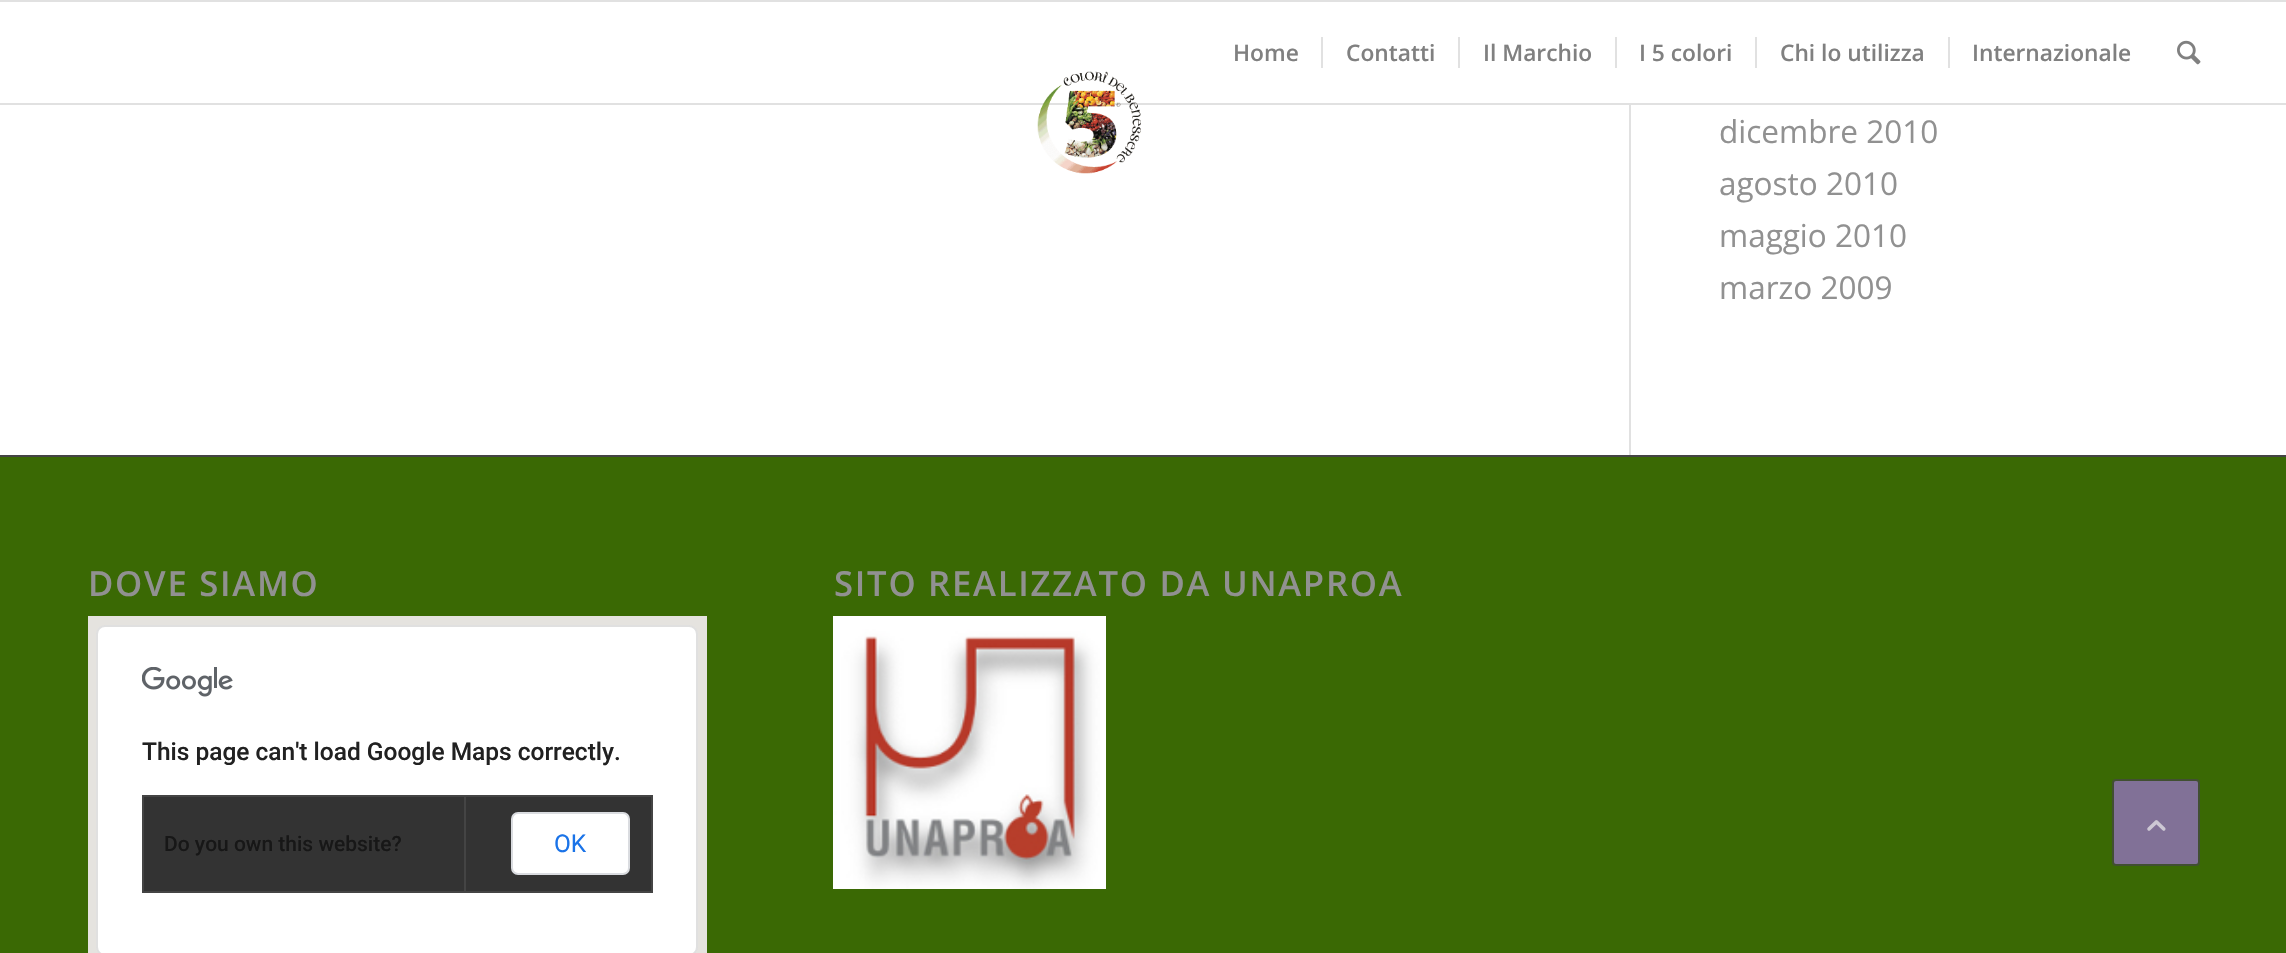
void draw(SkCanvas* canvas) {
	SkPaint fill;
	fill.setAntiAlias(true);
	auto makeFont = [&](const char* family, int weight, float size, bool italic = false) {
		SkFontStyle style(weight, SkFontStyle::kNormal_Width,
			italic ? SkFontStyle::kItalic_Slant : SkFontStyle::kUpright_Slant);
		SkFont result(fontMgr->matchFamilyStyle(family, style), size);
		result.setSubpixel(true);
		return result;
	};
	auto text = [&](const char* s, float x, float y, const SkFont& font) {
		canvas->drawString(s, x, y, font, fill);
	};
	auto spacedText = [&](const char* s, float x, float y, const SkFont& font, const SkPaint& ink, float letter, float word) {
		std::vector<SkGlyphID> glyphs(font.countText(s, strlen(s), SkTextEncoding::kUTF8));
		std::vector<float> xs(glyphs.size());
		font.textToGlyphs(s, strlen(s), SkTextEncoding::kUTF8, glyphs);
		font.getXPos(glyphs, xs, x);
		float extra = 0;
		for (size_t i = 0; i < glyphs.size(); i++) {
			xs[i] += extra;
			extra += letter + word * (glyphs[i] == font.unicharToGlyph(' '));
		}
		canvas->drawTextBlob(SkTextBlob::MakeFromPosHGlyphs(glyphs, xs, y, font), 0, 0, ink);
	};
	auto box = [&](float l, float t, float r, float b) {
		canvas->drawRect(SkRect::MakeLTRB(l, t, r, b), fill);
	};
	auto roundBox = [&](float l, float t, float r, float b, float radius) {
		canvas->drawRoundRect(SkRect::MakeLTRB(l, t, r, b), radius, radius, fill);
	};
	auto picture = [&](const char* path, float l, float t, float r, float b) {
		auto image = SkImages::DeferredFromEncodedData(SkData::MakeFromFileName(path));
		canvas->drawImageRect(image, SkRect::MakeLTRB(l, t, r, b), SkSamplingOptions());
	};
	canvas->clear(0xFFFFFFFF);
	fill.setColor(0xFFE1E1E1);
	box(0, 0, 2286, 2);
	box(0, 103, 2286, 105);
	box(1321, 37, 1323, 68);
	box(1458, 37, 1460, 68);
	box(1615, 37, 1617, 68);
	box(1755, 37, 1757, 68);
	box(1948, 37, 1950, 68);
	picture("image0.png", 2177, 40, 2201, 65);
	picture("image1.png", 1037, 71, 1141, 174);
	box(1629, 105, 1631, 455);
	fill.setColor(0xFF3A6904);
	box(0, 457, 2286, 953);
	fill.setColor(0xFF444444);
	box(0, 455, 2286, 457);
	fill.setColor(0xFFE5E3DF);
	box(88, 616, 707, 953);
	fill.setColor(0xFFFFFFFF);
	roundBox(96, 625, 698, 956, 9);
	fill.setStyle(SkPaint::kStroke_Style);
	fill.setStrokeWidth(2);
	fill.setColor(0x1F000000);
	canvas->drawRoundRect(SkRect::MakeLTRB(97, 626, 697, 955), 8, 8, fill);
	picture("image2.png", 142, 667, 233, 697);
	fill.setStyle(SkPaint::kFill_Style);
	fill.setColor(0xFF333333);
	box(144, 797, 651, 891);
	fill.setColor(0xFF444444);
	box(142, 795, 653, 797);
	box(651, 795, 653, 893);
	box(464, 891, 653, 893);
	box(464, 795, 466, 893);
	box(142, 891, 466, 893);
	box(142, 795, 144, 893);
	fill.setColor(0xFFFFFFFF);
	canvas->drawRoundRect(SkRect::MakeLTRB(512, 813, 629, 874), 6, 6, fill);
	fill.setStyle(SkPaint::kStroke_Style);
	fill.setColor(0xFFDADCE0);
	canvas->drawRoundRect(SkRect::MakeLTRB(512, 813, 629, 874), 6, 6, fill);
	picture("image3.png", 833, 616, 1106, 889);
	fill.setStyle(SkPaint::kFill_Style);
	fill.setColor(0xFF817197);
	canvas->drawRoundRect(SkRect::MakeLTRB(2113, 780, 2199, 865), 3, 3, fill);
	fill.setStyle(SkPaint::kStroke_Style);
	fill.setColor(0xFF414F31);
	canvas->drawRoundRect(SkRect::MakeLTRB(2113, 780, 2199, 865), 3, 3, fill);
	picture("image4.png", 2147, 820, 2166, 831);
	auto font1 = makeFont("Open Sans", 600, 22.75f);
	fill.setStyle(SkPaint::kFill_Style);
	fill.setColor(0xFF808080);
	text("Home", 1233, 61, font1);
	text("Contatti", 1346, 61, font1);
	text("Il Marchio", 1483, 61, font1);
	text("I 5 colori", 1639, 61, font1);
	text("Chi lo utilizza", 1780, 61, font1);
	text("Internazionale", 1972, 61, font1);
	auto font2 = makeFont("Open Sans", 400, 31.5f);
	fill.setColor(0xFF919191);
	text("dicembre 2010", 1719, 143, font2);
	text("agosto 2010", 1719, 195, font2);
	text("maggio 2010", 1719, 247, font2);
	text("marzo 2009", 1719, 299, font2);
	auto font3 = makeFont("Open Sans", 600, 34.6f);
	spacedText("DOVE SIAMO", 88, 596, font3, fill, 1.75f, 0);
	auto font4 = makeFont("Roboto", 500, 24.5f);
	fill.setColor(0xFF212121);
	text("This page can't load Google Maps correctly.", 142, 760, font4);
	auto font5 = makeFont("Roboto", 500, 21);
	fill.setColor(0xFF171717);
	text("Do you own this website?", 164, 851, font5);
	auto font6 = makeFont("Roboto", 400, 24.5f);
	fill.setColor(0xFF1A73E8);
	text("OK", 554, 852, font6);
	fill.setColor(0xFF919191);
	spacedText("SITO REALIZZATO DA UNAPROA", 834, 596, font3, fill, 1.75f, 0);
}
